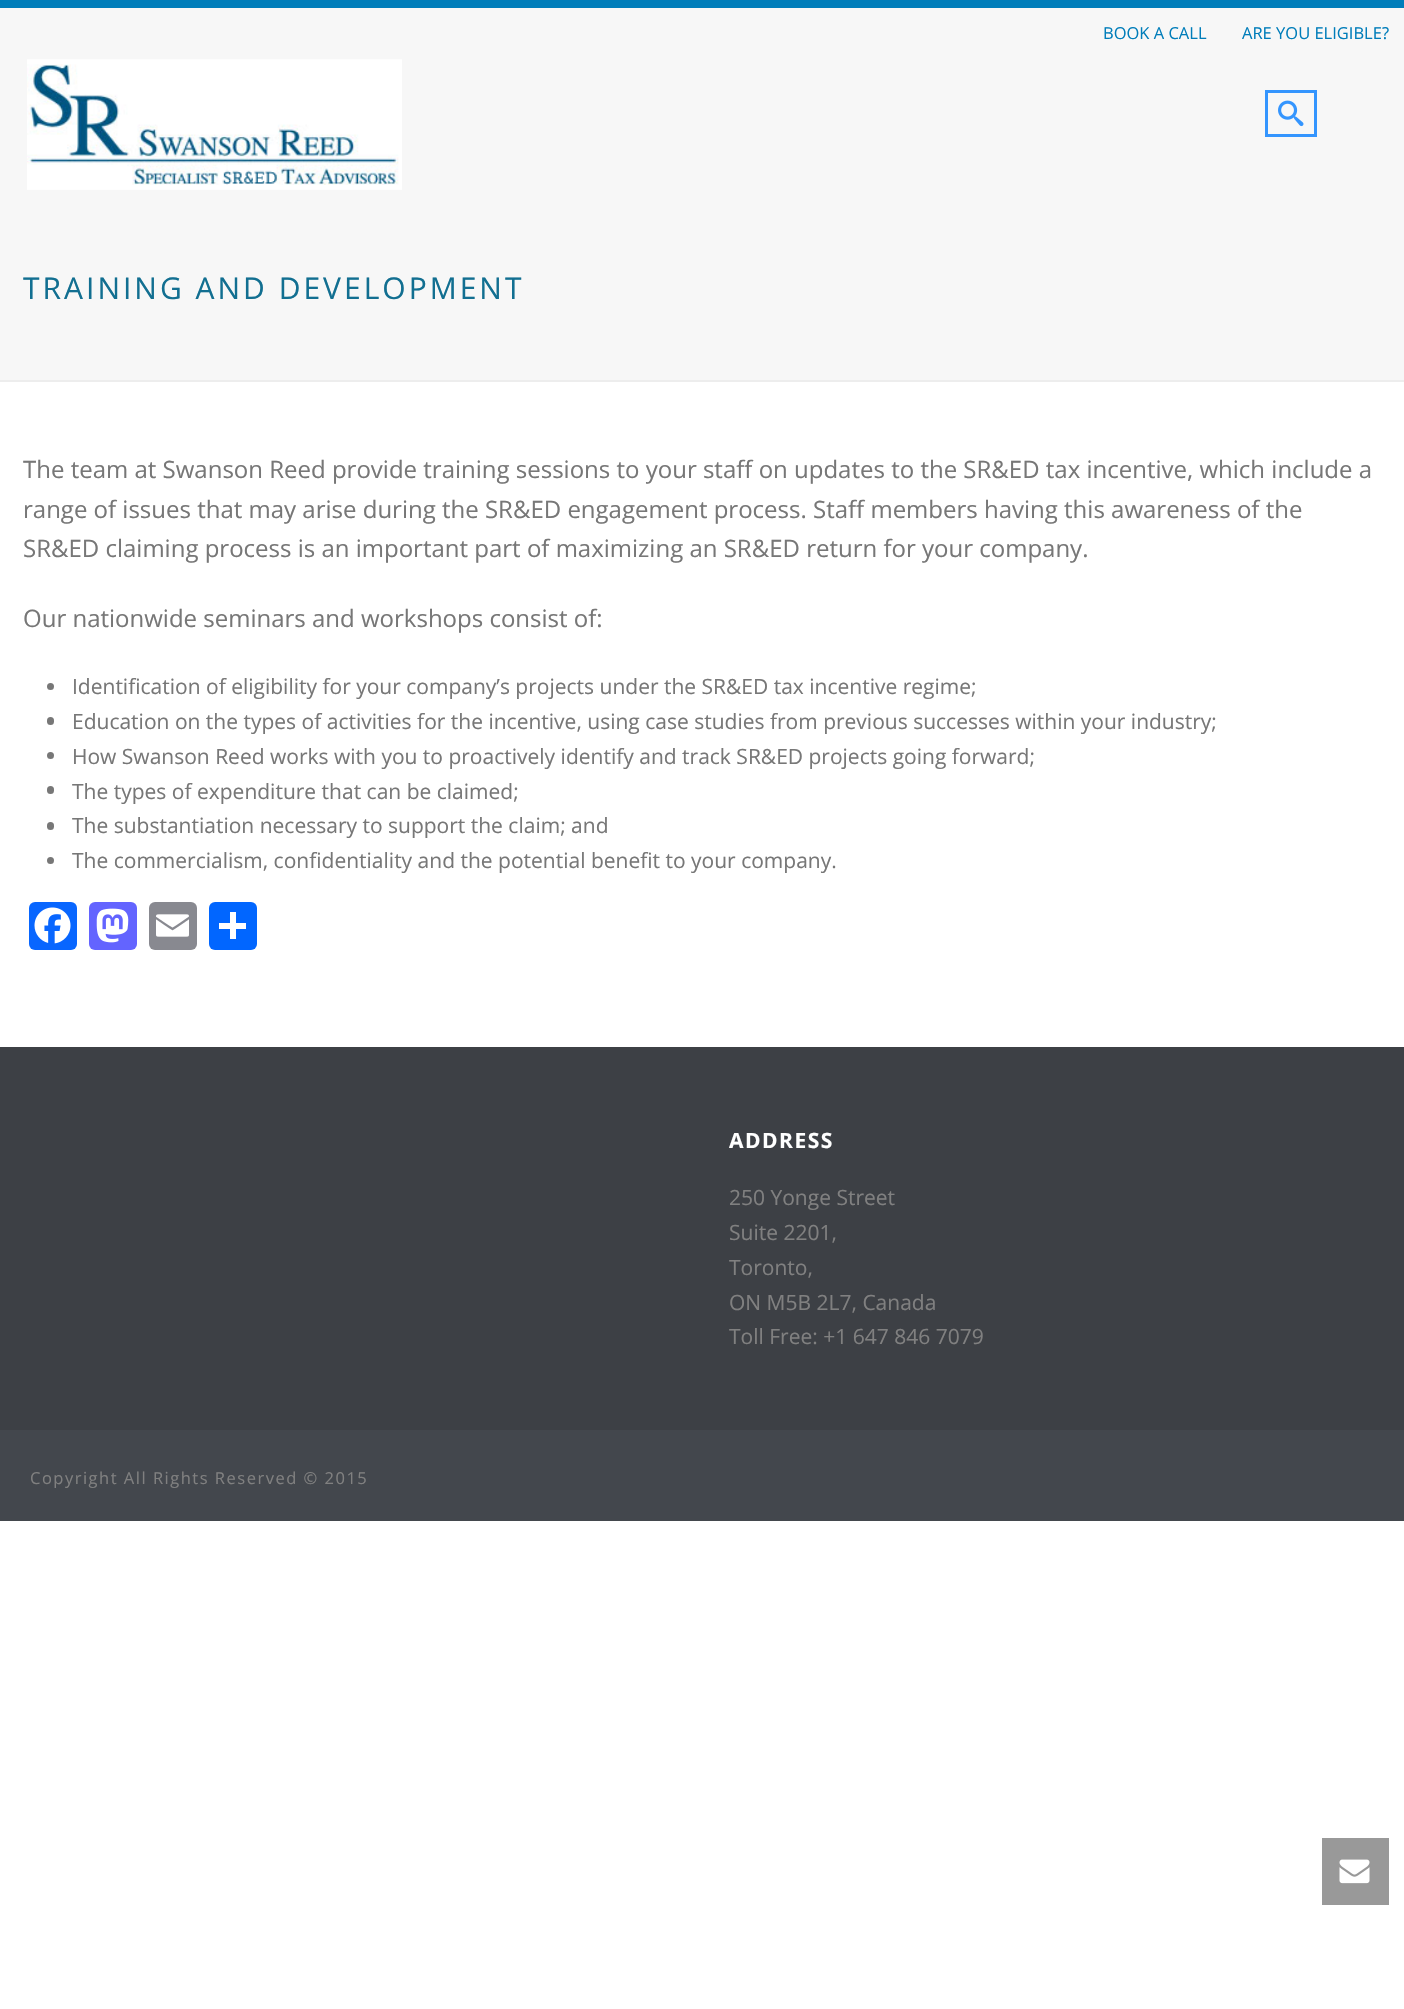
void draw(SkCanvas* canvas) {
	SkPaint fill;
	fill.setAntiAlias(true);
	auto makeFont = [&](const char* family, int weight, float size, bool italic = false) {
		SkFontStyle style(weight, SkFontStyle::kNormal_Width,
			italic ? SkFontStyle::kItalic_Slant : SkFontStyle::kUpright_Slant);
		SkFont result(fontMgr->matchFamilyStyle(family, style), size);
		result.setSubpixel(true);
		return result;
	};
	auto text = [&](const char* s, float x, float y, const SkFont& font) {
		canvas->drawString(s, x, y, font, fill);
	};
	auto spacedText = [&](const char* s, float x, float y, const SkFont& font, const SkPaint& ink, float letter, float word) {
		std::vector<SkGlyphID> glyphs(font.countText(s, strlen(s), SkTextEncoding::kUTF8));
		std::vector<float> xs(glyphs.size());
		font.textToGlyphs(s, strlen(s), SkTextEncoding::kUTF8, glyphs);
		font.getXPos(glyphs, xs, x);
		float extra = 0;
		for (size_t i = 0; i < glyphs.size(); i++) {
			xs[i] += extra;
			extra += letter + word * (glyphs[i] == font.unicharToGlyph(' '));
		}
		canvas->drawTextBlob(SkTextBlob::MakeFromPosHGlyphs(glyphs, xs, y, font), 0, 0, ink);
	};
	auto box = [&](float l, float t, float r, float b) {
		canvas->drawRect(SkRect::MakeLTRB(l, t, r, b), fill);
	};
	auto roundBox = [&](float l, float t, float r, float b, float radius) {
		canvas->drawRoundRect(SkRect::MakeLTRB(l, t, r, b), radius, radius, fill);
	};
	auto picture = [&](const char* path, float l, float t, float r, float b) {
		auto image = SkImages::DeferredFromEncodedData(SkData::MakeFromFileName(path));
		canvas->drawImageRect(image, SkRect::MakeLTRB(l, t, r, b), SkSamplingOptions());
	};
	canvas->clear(0xFFFFFFFF);
	fill.setColor(0xFFF7F7F7);
	box(0, 8, 1404, 380);
	fill.setColor(0xFFEDEDED);
	box(0, 380, 1404, 382);
	fill.setColor(0xFF007DBA);
	box(0, 0, 1404, 8);
	picture("image0.png", 27, 59, 402, 190);
	fill.setStyle(SkPaint::kStroke_Style);
	fill.setStrokeWidth(3);
	fill.setColor(0xFF3495FE);
	canvas->drawRect(SkRect::MakeLTRB(1266.5f, 91.5f, 1315.5f, 135.5f), fill);
	picture("image1.png", 1278, 100, 1304, 127);
	fill.setStyle(SkPaint::kFill_Style);
	fill.setColor(0xFF777777);
	canvas->drawCircle(50.5f, 686.5f, 3.5f, fill);
	roundBox(47, 717, 54, 725, 3.5f);
	canvas->drawCircle(50.5f, 755.5f, 3.5f, fill);
	roundBox(47, 786, 54, 794, 3.5f);
	roundBox(47, 822, 54, 830, 3.5f);
	canvas->drawCircle(50.5f, 860.5f, 3.5f, fill);
	fill.setColor(0xFF0866FF);
	roundBox(29, 902, 77, 950, 6);
	picture("image2.png", 34, 907, 71, 944);
	fill.setColor(0xFF6364FF);
	roundBox(89, 902, 137, 950, 6);
	picture("image3.png", 96, 908, 129, 943);
	fill.setColor(0xFF888990);
	roundBox(149, 902, 197, 950, 6);
	picture("image4.png", 156, 914, 189, 937);
	fill.setColor(0xFF0166FF);
	roundBox(209, 902, 257, 950, 6);
	fill.setColor(0xFFFFFFFF);
	box(230, 912, 236, 939);
	box(219, 923, 246, 929);
	fill.setColor(0xFF3D4045);
	box(0, 1047, 1404, 1430);
	fill.setColor(0xFF43474D);
	box(0, 1430, 1404, 1521);
	fill.setColor(0xFF999999);
	box(1322, 1838, 1389, 1905);
	picture("image5.png", 1339, 1859, 1370, 1884);
	auto font1 = makeFont("Open Sans", 400, 16.5f);
	fill.setColor(0xFF007DBA);
	text("BOOK A CALL", 1103, 39, font1);
	text("ARE YOU ELIGIBLE?", 1242, 39, font1);
	auto font2 = makeFont("Open Sans", 400, 30);
	fill.setColor(0xFF126F91);
	spacedText("TRAINING AND DEVELOPMENT", 23, 299, font2, fill, 3, 0);
	auto font3 = makeFont("Open Sans", 400, 24);
	fill.setColor(0xFF777777);
	text("The team at Swanson Reed provide training sessions to your staff on updates to the SR&ED tax incentive, which include a", 23, 478, font3);
	text("range of issues that may arise during the SR&ED engagement process. Staff members having this awareness of the", 23, 518, font3);
	text("SR&ED claiming process is an important part of maximizing an SR&ED return for your company.", 23, 557, font3);
	text("Our nationwide seminars and workshops consist of:", 23, 627, font3);
	auto font4 = makeFont("Open Sans", 400, 21);
	text("Identification of eligibility for your company’s projects under the SR&ED tax incentive regime;", 72, 694, font4);
	text("Education on the types of activities for the incentive, using case studies from previous successes within your industry;", 72, 729, font4);
	text("How Swanson Reed works with you to proactively identify and track SR&ED projects going forward;", 72, 764, font4);
	text("The types of expenditure that can be claimed;", 72, 799, font4);
	text("The substantiation necessary to support the claim; and", 72, 833, font4);
	text("The commercialism, confidentiality and the potential benefit to your company.", 72, 868, font4);
	auto font5 = makeFont("Open Sans", 700, 21);
	fill.setColor(0xFFFFFFFF);
	spacedText("ADDRESS", 729, 1148, font5, fill, 1.5f, 0);
	fill.setColor(0xFF808080);
	text("250 Yonge Street", 729, 1205, font4);
	text("Suite 2201,", 729, 1240, font4);
	text("Toronto,", 729, 1275, font4);
	text("ON M5B 2L7, Canada", 729, 1310, font4);
	text("Toll Free: +1 647 846 7079", 729, 1344, font4);
	spacedText("Copyright All Rights Reserved © 2015", 30, 1484, font1, fill, 1.5f, 0);
}
